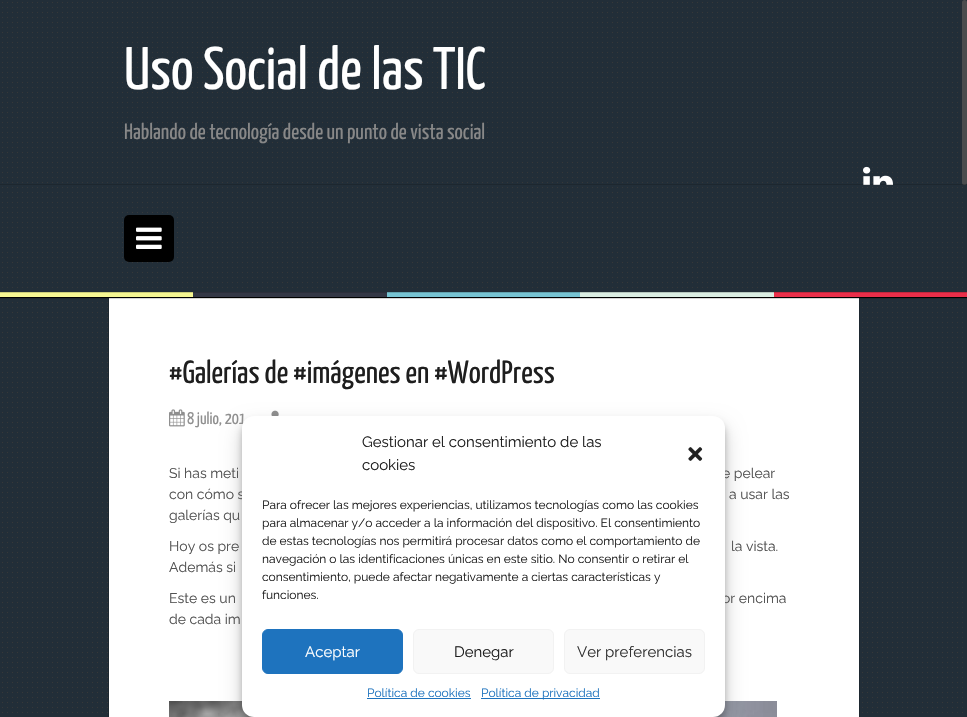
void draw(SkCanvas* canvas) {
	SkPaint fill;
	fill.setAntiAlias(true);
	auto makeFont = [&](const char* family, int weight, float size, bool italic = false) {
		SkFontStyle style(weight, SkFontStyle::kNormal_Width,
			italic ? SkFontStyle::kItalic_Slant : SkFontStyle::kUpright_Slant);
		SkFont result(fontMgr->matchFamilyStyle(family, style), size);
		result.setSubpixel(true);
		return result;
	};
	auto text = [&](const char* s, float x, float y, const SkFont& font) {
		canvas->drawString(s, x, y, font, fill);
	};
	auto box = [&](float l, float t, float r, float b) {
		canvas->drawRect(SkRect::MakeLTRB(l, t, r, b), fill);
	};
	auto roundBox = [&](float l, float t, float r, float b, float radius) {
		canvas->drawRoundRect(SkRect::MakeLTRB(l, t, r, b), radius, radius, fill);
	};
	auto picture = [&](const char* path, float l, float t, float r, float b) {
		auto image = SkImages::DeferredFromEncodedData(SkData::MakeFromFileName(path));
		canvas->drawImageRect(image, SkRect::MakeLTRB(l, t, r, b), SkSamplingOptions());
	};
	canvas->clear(0xFF222E38);
	picture("image0.png", 2, 2, 963, 713);
	picture("image1.png", 863, 166, 893, 185);
	fill.setColor(0xFF000000);
	fill.setMaskFilter(SkMaskFilter::MakeBlur(kNormal_SkBlurStyle, 0.5f));
	canvas->drawRect(SkRect::MakeLTRB(109, 298, 859, 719), fill);
	fill.setMaskFilter(nullptr);
	fill.setColor(0xFFFFFFFF);
	box(109, 297, 859, 717);
	fill.setColor(0xFF000000);
	fill.setMaskFilter(SkMaskFilter::MakeBlur(kNormal_SkBlurStyle, 0.5f));
	canvas->drawRect(SkRect::MakeLTRB(0, 293, 967, 298), fill);
	fill.setMaskFilter(nullptr);
	fill.setColor(0xFFF6F792);
	box(0, 292, 193, 297);
	fill.setColor(0xFF333745);
	box(193, 292, 387, 297);
	fill.setColor(0xFF77C4D3);
	box(387, 292, 580, 297);
	fill.setColor(0xFFDAEDE2);
	box(580, 292, 774, 297);
	fill.setColor(0xFFEA2E49);
	box(774, 292, 967, 297);
	fill.setColor(0xD4525252);
	roundBox(962, 0, 967, 185, 2.5f);
	fill.setColor(0xFF000000);
	fill.setMaskFilter(SkMaskFilter::MakeBlur(kNormal_SkBlurStyle, 0.5f));
	canvas->drawRect(SkRect::MakeLTRB(0, 185, 967, 292), fill);
	fill.setMaskFilter(nullptr);
	fill.setColor(0xFF222E38);
	box(0, 185, 967, 292);
	picture("image2.png", 2, 187, 963, 288);
	fill.setColor(0xFF000000);
	roundBox(124, 215, 174, 262, 5);
	picture("image3.png", 136, 227, 162, 249);
	picture("image4.png", 169, 409, 185, 427);
	picture("image5.png", 271, 410, 279, 416);
	picture("image6.png", 169, 701, 254, 717);
	picture("image7.png", 713, 701, 777, 717);
	fill.setColor(0x3B000000);
	fill.setMaskFilter(SkMaskFilter::MakeBlur(kNormal_SkBlurStyle, 3));
	canvas->drawRoundRect(SkRect::MakeLTRB(242, 422, 725, 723), 12, 12, fill);
	fill.setMaskFilter(nullptr);
	fill.setColor(0x30000000);
	fill.setMaskFilter(SkMaskFilter::MakeBlur(kNormal_SkBlurStyle, 10));
	canvas->drawRoundRect(SkRect::MakeLTRB(242, 426, 725, 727), 12, 12, fill);
	fill.setMaskFilter(nullptr);
	auto font1 = makeFont("Yanone Kaffeesatz", 400, 60);
	fill.setColor(0xFFFFFFFF);
	text("Uso Social de las TIC", 124, 89, font1);
	auto font2 = makeFont("Yanone Kaffeesatz", 400, 22);
	fill.setColor(0xFF888888);
	text("Hablando de tecnología desde un punto de vista social", 124, 139, font2);
	auto font3 = makeFont("Yanone Kaffeesatz", 400, 32);
	fill.setColor(0xFF1E1E1E);
	text("#Galerías de #imágenes en #WordPress", 169, 383, font3);
	auto font4 = makeFont("Yanone Kaffeesatz", 400, 17);
	fill.setColor(0xFF8F8F8F);
	text("8 julio, 201", 187, 424, font4);
	auto font5 = makeFont("Raleway", 400, 14);
	fill.setColor(0xFF515151);
	text("Si has meti", 169, 478, font5);
	text("e pelear", 722, 478, font5);
	text("con cómo s", 169, 499, font5);
	text("a usar las", 729, 499, font5);
	text("galerías qu", 169, 520, font5);
	text("Hoy os pre", 169, 551, font5);
	text("la vista.", 731, 551, font5);
	text("Además si", 169, 572, font5);
	text("Este es un", 169, 603, font5);
	text("or encima", 722, 603, font5);
	text("de cada im", 169, 624, font5);
	fill.setColor(0xFFFFFFFF);
	roundBox(242, 416, 725, 717, 12);
	auto font6 = makeFont("Raleway", 400, 15);
	fill.setColor(0xFF1E1E1E);
	text("Gestionar el consentimiento de las", 362, 447, font6);
	text("cookies", 362, 470, font6);
	picture("image8.png", 688, 447, 703, 461);
	auto font7 = makeFont("Raleway", 400, 12);
	text("Para ofrecer las mejores experiencias, utilizamos tecnologías como las cookies", 262, 509, font7);
	text("para almacenar y/o acceder a la información del dispositivo. El consentimiento", 262, 527, font7);
	text("de estas tecnologías nos permitirá procesar datos como el comportamiento de", 262, 545, font7);
	text("navegación o las identificaciones únicas en este sitio. No consentir o retirar el", 262, 563, font7);
	text("consentimiento, puede afectar negativamente a ciertas características y", 262, 581, font7);
	text("funciones.", 262, 599, font7);
	fill.setColor(0xFF1E73BE);
	canvas->drawRoundRect(SkRect::MakeLTRB(262.5f, 629.5f, 402.5f, 673.5f), 5.5f, 5.5f, fill);
	fill.setStyle(SkPaint::kStroke_Style);
	fill.setStrokeWidth(1);
	canvas->drawRoundRect(SkRect::MakeLTRB(262.5f, 629.5f, 402.5f, 673.5f), 5.5f, 5.5f, fill);
	fill.setStyle(SkPaint::kFill_Style);
	fill.setColor(0xFFFFFFFF);
	text("Aceptar", 305, 657, font6);
	fill.setColor(0xFFF9F9F9);
	canvas->drawRoundRect(SkRect::MakeLTRB(413.5f, 629.5f, 553.5f, 673.5f), 5.5f, 5.5f, fill);
	fill.setStyle(SkPaint::kStroke_Style);
	fill.setColor(0xFFF2F2F2);
	canvas->drawRoundRect(SkRect::MakeLTRB(413.5f, 629.5f, 553.5f, 673.5f), 5.5f, 5.5f, fill);
	fill.setStyle(SkPaint::kFill_Style);
	fill.setColor(0xFF1E1E1E);
	text("Denegar", 454, 657, font6);
	fill.setColor(0xFFF9F9F9);
	canvas->drawRoundRect(SkRect::MakeLTRB(564.5f, 629.5f, 704.5f, 673.5f), 5.5f, 5.5f, fill);
	fill.setStyle(SkPaint::kStroke_Style);
	fill.setColor(0xFFF2F2F2);
	canvas->drawRoundRect(SkRect::MakeLTRB(564.5f, 629.5f, 704.5f, 673.5f), 5.5f, 5.5f, fill);
	fill.setStyle(SkPaint::kFill_Style);
	fill.setColor(0xFF333333);
	text("Ver preferencias", 577, 657, font6);
	fill.setColor(0xFF1E73BE);
	text("Política de cookies", 367, 697, font7);
	box(367, 698, 471, 699);
	box(481, 698, 600, 699);
	text("Política de privacidad", 481, 697, font7);
}
